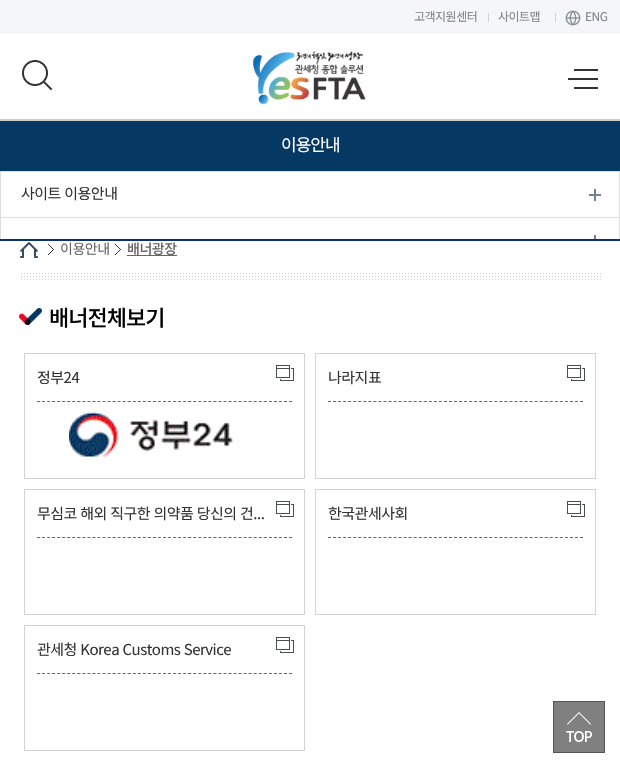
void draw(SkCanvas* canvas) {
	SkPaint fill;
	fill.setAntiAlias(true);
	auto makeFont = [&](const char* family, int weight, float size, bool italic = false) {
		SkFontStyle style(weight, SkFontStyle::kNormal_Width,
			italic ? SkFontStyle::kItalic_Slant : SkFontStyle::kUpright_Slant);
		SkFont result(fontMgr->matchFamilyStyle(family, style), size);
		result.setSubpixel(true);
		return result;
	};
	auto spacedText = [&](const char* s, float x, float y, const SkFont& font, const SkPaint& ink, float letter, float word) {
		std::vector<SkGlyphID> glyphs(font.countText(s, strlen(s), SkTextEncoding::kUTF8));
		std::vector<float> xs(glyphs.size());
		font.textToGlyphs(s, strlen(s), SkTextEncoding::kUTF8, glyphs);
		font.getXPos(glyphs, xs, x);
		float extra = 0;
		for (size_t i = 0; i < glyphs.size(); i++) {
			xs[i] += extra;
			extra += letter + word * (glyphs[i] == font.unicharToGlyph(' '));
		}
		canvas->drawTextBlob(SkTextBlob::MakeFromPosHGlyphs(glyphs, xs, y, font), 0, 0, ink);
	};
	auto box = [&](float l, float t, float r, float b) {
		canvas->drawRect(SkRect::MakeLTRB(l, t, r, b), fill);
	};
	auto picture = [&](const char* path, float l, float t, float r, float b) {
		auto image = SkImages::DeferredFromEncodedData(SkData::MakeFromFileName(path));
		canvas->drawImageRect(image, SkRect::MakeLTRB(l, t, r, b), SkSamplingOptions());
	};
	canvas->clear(0xFFFFFFFF);
	fill.setColor(0xFFF4F6F9);
	box(0, 0, 620, 34);
	fill.setColor(0xFFD3D3D3);
	box(488, 13, 489, 22);
	box(555, 13, 556, 22);
	picture("image0.png", 565, 10, 581, 26);
	picture("image1.png", 22, 60, 53, 91);
	picture("image2.png", 253, 51, 366, 105);
	fill.setColor(0xFF333333);
	box(574, 69, 598, 71);
	box(568, 78, 598, 80);
	box(574, 87, 598, 89);
	fill.setColor(0xFFCCCCCC);
	box(0, 119, 620, 121);
	fill.setColor(0xFF053863);
	box(0, 121, 620, 171);
	fill.setColor(0xFF0A326C);
	box(0, 239, 620, 241);
	picture("image3.png", 589, 189, 601, 201);
	fill.setStyle(SkPaint::kStroke_Style);
	fill.setStrokeWidth(1);
	fill.setColor(0xFFDEDEDE);
	canvas->drawRect(SkRect::MakeLTRB(0.5f, 171.5f, 619.5f, 217.5f), fill);
	fill.setStyle(SkPaint::kFill_Style);
	fill.setColor(0xFF757E9B);
	box(594, 235, 596, 239);
	fill.setColor(0xFFDEDEDE);
	box(619, 218, 620, 239);
	box(0, 218, 1, 239);
	picture("image4.png", 20, 273, 601, 280);
	picture("image5.png", 20, 242, 38, 258);
	picture("image6.png", 48, 244, 54, 255);
	picture("image6.png", 115, 244, 121, 255);
	fill.setColor(0xFF666666);
	box(127, 255, 177, 256);
	picture("image7.png", 19, 308, 42, 325);
	picture("image8.png", 276, 365, 294, 381);
	fill.setStyle(SkPaint::kStroke_Style);
	fill.setColor(0xFFD3D3D3);
	canvas->drawRect(SkRect::MakeLTRB(24.5f, 353.5f, 304.5f, 478.5f), fill);
	fill.setColor(0xFF666666);
	fill.setPathEffect(SkDashPathEffect::Make({{3, 2.04f}}, 0));
	canvas->drawPath(SkPathBuilder().moveTo(37, 401.5f).lineTo(292, 401.5f).detach(), fill);
	fill.setPathEffect(nullptr);
	picture("image9.png", 69, 412, 233, 457);
	picture("image8.png", 567, 365, 585, 381);
	fill.setColor(0xFFD3D3D3);
	canvas->drawRect(SkRect::MakeLTRB(315.5f, 353.5f, 595.5f, 478.5f), fill);
	fill.setColor(0xFF666666);
	fill.setPathEffect(SkDashPathEffect::Make({{3, 2.04f}}, 0));
	canvas->drawPath(SkPathBuilder().moveTo(328, 401.5f).lineTo(583, 401.5f).detach(), fill);
	fill.setPathEffect(nullptr);
	picture("image8.png", 276, 501, 294, 517);
	fill.setColor(0xFFD3D3D3);
	canvas->drawRect(SkRect::MakeLTRB(24.5f, 489.5f, 304.5f, 614.5f), fill);
	fill.setColor(0xFF666666);
	fill.setPathEffect(SkDashPathEffect::Make({{3, 2.04f}}, 0));
	canvas->drawPath(SkPathBuilder().moveTo(37, 537.5f).lineTo(292, 537.5f).detach(), fill);
	fill.setPathEffect(nullptr);
	picture("image8.png", 567, 501, 585, 517);
	fill.setColor(0xFFD3D3D3);
	canvas->drawRect(SkRect::MakeLTRB(315.5f, 489.5f, 595.5f, 614.5f), fill);
	fill.setColor(0xFF666666);
	fill.setPathEffect(SkDashPathEffect::Make({{3, 2.04f}}, 0));
	canvas->drawPath(SkPathBuilder().moveTo(328, 537.5f).lineTo(583, 537.5f).detach(), fill);
	fill.setPathEffect(nullptr);
	picture("image8.png", 276, 637, 294, 653);
	fill.setColor(0xFFD3D3D3);
	canvas->drawRect(SkRect::MakeLTRB(24.5f, 625.5f, 304.5f, 750.5f), fill);
	fill.setColor(0xFF666666);
	fill.setPathEffect(SkDashPathEffect::Make({{3, 2.04f}}, 0));
	canvas->drawPath(SkPathBuilder().moveTo(37, 673.5f).lineTo(292, 673.5f).detach(), fill);
	fill.setPathEffect(nullptr);
	fill.setStyle(SkPaint::kFill_Style);
	fill.setColor(0xFF808080);
	box(554, 702, 604, 752);
	picture("image10.png", 566, 712, 592, 742);
	fill.setStyle(SkPaint::kStroke_Style);
	fill.setColor(0xFF555555);
	canvas->drawRect(SkRect::MakeLTRB(553.5f, 701.5f, 604.5f, 752.5f), fill);
	auto font1 = makeFont("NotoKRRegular", 400, 12);
	fill.setStyle(SkPaint::kFill_Style);
	fill.setColor(0xFF80858A);
	spacedText("고객지원센터", 414, 21, font1, fill, -0.5f, 0);
	spacedText("사이트맵", 498, 21, font1, fill, -0.5f, 0);
	spacedText("ENG", 585, 21, font1, fill, -0.5f, 0);
	auto font2 = makeFont("NotoKRRegular", 400, 17);
	fill.setColor(0xFFFFFFFF);
	spacedText("이용안내", 281, 151, font2, fill, -1, 0);
	auto font3 = makeFont("NotoKRRegular", 400, 15);
	fill.setColor(0xFF333333);
	spacedText("사이트 이용안내", 21, 199, font3, fill, -0.5f, 0.5f);
	auto font4 = makeFont("NotoKRRegular", 400, 14);
	fill.setColor(0xFF666666);
	spacedText("이용안내", 60, 254, font4, fill, -0.5f, 0);
	auto font5 = makeFont("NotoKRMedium", 500, 14);
	spacedText("배너광장", 127, 254, font5, fill, -0.5f, 0);
	auto font6 = makeFont("NotoKRMedium", 500, 22);
	fill.setColor(0xFF000000);
	spacedText("배너전체보기", 49, 326, font6, fill, -1, 0);
	fill.setColor(0xFF333333);
	spacedText("정부24", 37, 383, font3, fill, -0.5f, 0);
	spacedText("나라지표", 328, 383, font3, fill, -0.5f, 0);
	spacedText("무심코 해외 직구한 의약품 당신의 건...", 37, 519, font3, fill, -0.5f, 0.5f);
	spacedText("한국관세사회", 328, 519, font3, fill, -0.5f, 0);
	spacedText("관세청 Korea Customs Service", 37, 655, font3, fill, -0.5f, 0.5f);
}
